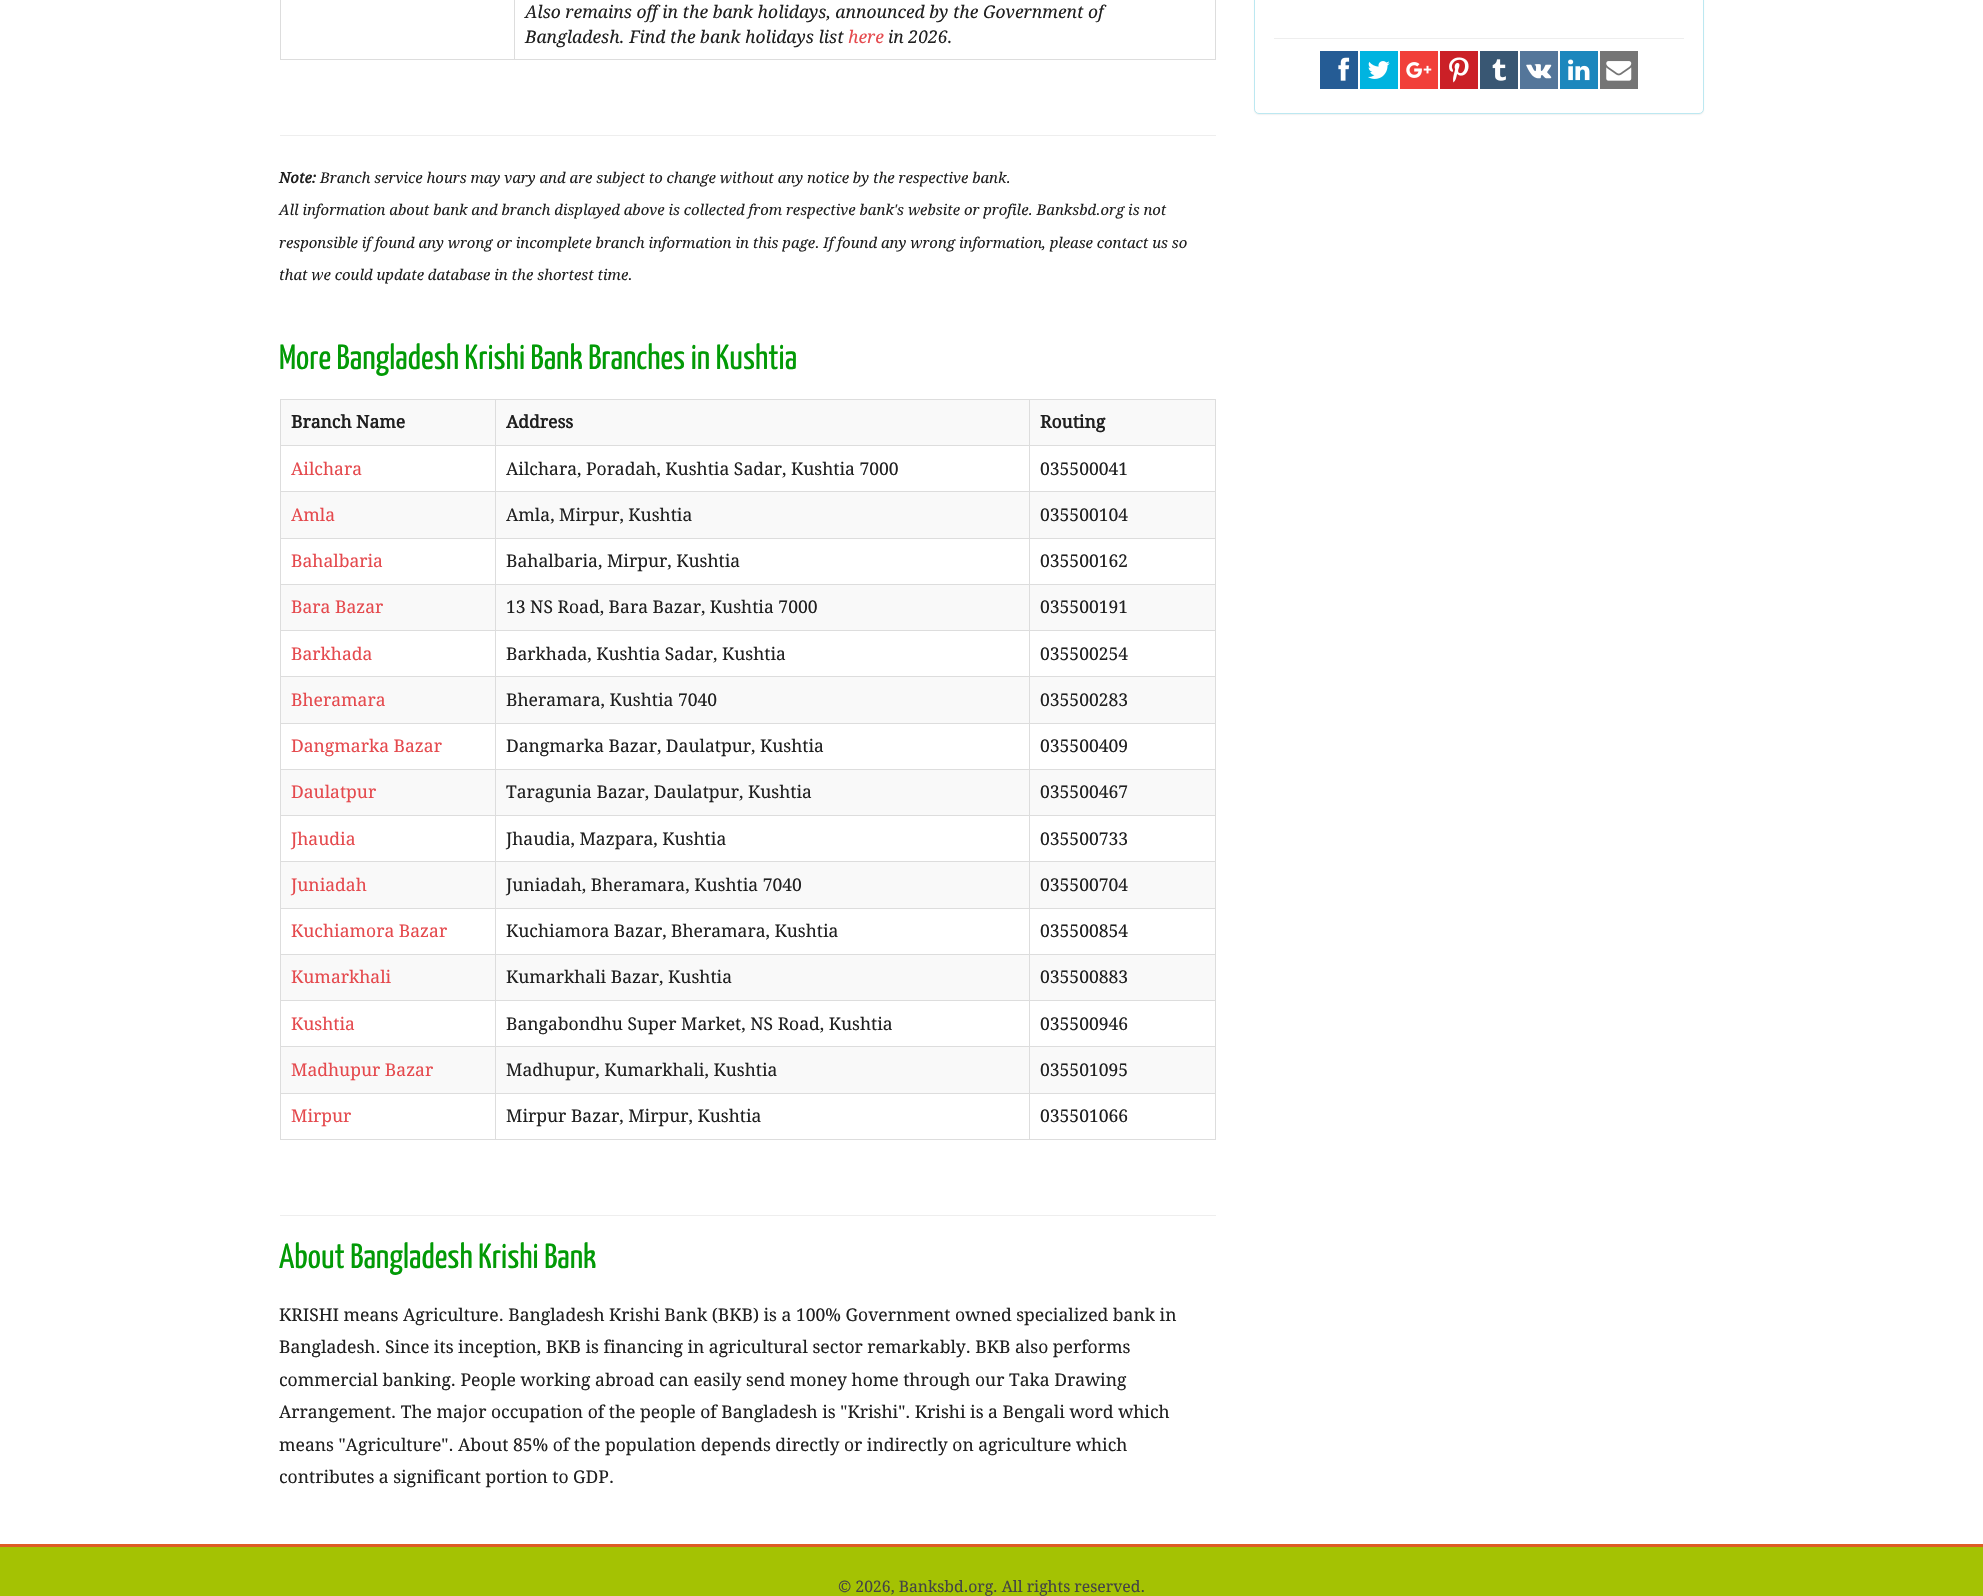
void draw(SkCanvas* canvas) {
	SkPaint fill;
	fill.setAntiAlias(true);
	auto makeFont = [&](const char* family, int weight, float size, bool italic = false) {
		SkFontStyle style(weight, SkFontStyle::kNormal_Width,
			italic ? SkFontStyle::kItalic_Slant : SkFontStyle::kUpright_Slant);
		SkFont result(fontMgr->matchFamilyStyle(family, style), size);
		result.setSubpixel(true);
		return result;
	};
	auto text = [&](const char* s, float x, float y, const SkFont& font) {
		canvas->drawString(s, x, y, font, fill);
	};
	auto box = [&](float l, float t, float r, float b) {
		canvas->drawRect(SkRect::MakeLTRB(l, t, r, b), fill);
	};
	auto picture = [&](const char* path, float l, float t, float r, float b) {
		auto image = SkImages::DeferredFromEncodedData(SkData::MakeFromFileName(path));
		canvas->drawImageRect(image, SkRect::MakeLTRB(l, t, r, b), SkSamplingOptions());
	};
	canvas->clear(0xFFFFFFFF);
	fill.setColor(0xFFDDDDDD);
	box(1215, 0, 1216, 60);
	box(280, 59, 1216, 60);
	box(280, 0, 281, 60);
	box(514, 0, 515, 60);
	fill.setColor(0xFFEEEEEE);
	box(280, 135, 1216, 136);
	fill.setColor(0xFFDDDDDD);
	box(280, 399, 1216, 400);
	box(1215, 399, 1216, 1140);
	box(280, 1139, 1216, 1140);
	box(280, 399, 281, 1140);
	fill.setColor(0xFFF9F9F9);
	box(281, 400, 495, 445);
	box(496, 400, 1029, 445);
	fill.setColor(0xFFDDDDDD);
	box(1029, 445, 1216, 446);
	box(1029, 491, 1216, 492);
	box(1029, 538, 1216, 539);
	box(1029, 584, 1216, 585);
	box(1029, 630, 1216, 631);
	box(1029, 676, 1216, 677);
	box(1029, 723, 1216, 724);
	box(1029, 769, 1216, 770);
	box(1029, 815, 1216, 816);
	box(1029, 861, 1216, 862);
	box(1029, 908, 1216, 909);
	box(1029, 954, 1216, 955);
	box(1029, 1000, 1216, 1001);
	box(1029, 1046, 1216, 1047);
	box(1029, 1093, 1216, 1094);
	box(1029, 1093, 1030, 1140);
	box(495, 1093, 1030, 1094);
	box(1029, 1046, 1030, 1094);
	box(495, 1046, 1030, 1047);
	box(1029, 1000, 1030, 1048);
	box(495, 1000, 1030, 1001);
	box(1029, 954, 1030, 1001);
	box(495, 954, 1030, 955);
	box(1029, 908, 1030, 955);
	box(495, 908, 1030, 909);
	box(1029, 861, 1030, 909);
	box(495, 861, 1030, 862);
	box(1029, 815, 1030, 863);
	box(495, 815, 1030, 816);
	box(1029, 769, 1030, 816);
	box(495, 769, 1030, 770);
	box(1029, 723, 1030, 770);
	box(495, 723, 1030, 724);
	box(1029, 676, 1030, 724);
	box(495, 676, 1030, 677);
	box(1029, 630, 1030, 678);
	box(495, 630, 1030, 631);
	box(1029, 584, 1030, 631);
	box(495, 584, 1030, 585);
	box(1029, 538, 1030, 585);
	box(495, 538, 1030, 539);
	box(1029, 491, 1030, 539);
	box(495, 491, 1030, 492);
	box(1029, 445, 1030, 493);
	box(495, 445, 1030, 446);
	box(495, 1093, 496, 1140);
	box(280, 1093, 496, 1094);
	box(495, 1046, 496, 1094);
	box(280, 1046, 496, 1047);
	box(495, 1000, 496, 1048);
	box(280, 1000, 496, 1001);
	box(495, 954, 496, 1001);
	box(280, 954, 496, 955);
	box(495, 908, 496, 955);
	box(280, 908, 496, 909);
	box(495, 861, 496, 909);
	box(280, 861, 496, 862);
	box(495, 815, 496, 863);
	box(280, 815, 496, 816);
	box(495, 769, 496, 816);
	box(280, 769, 496, 770);
	box(495, 723, 496, 770);
	box(280, 723, 496, 724);
	box(495, 676, 496, 724);
	box(280, 676, 496, 677);
	box(495, 630, 496, 678);
	box(280, 630, 496, 631);
	box(495, 584, 496, 631);
	box(280, 584, 496, 585);
	box(495, 538, 496, 585);
	box(280, 538, 496, 539);
	box(495, 491, 496, 539);
	box(280, 491, 496, 492);
	box(495, 445, 496, 493);
	box(280, 445, 496, 446);
	box(495, 399, 496, 446);
	fill.setColor(0xFFF9F9F9);
	box(1030, 400, 1215, 445);
	fill.setColor(0xFFDDDDDD);
	box(1029, 399, 1030, 446);
	fill.setColor(0xFFF9F9F9);
	box(281, 492, 495, 538);
	box(496, 492, 1029, 538);
	box(1030, 492, 1215, 538);
	box(281, 585, 495, 630);
	box(496, 585, 1029, 630);
	box(1030, 585, 1215, 630);
	box(281, 677, 495, 723);
	box(496, 677, 1029, 723);
	box(1030, 677, 1215, 723);
	box(281, 770, 495, 815);
	box(496, 770, 1029, 815);
	box(1030, 770, 1215, 815);
	box(281, 862, 495, 908);
	box(496, 862, 1029, 908);
	box(1030, 862, 1215, 908);
	box(281, 955, 495, 1000);
	box(496, 955, 1029, 1000);
	box(1030, 955, 1215, 1000);
	box(281, 1047, 495, 1093);
	box(496, 1047, 1029, 1093);
	box(1030, 1047, 1215, 1093);
	fill.setColor(0xFFEEEEEE);
	box(280, 1215, 1216, 1216);
	fill.setColor(0x0D000000);
	fill.setMaskFilter(SkMaskFilter::MakeBlur(kNormal_SkBlurStyle, 0.5f));
	canvas->drawRoundRect(SkRect::MakeLTRB(1254, -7, 1704, 115), 5, 5, fill);
	fill.setMaskFilter(nullptr);
	fill.setColor(0xFFFFFFFF);
	canvas->drawRoundRect(SkRect::MakeLTRB(1254.5f, -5.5f, 1703.5f, 113.5f), 4.5f, 4.5f, fill);
	fill.setStyle(SkPaint::kStroke_Style);
	fill.setStrokeWidth(1);
	fill.setColor(0xFFBCE8F1);
	canvas->drawRoundRect(SkRect::MakeLTRB(1254.5f, -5.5f, 1703.5f, 113.5f), 4.5f, 4.5f, fill);
	fill.setStyle(SkPaint::kFill_Style);
	fill.setColor(0xFFEEEEEE);
	box(1274, 38, 1684, 39);
	fill.setColor(0xFF255C95);
	box(1320, 51, 1358, 89);
	picture("image0.png", 1338, 57, 1350, 81);
	fill.setColor(0xFF00B4E0);
	box(1360, 51, 1398, 89);
	picture("image1.png", 1368, 61, 1390, 79);
	fill.setColor(0xFFF1403A);
	box(1400, 51, 1438, 89);
	picture("image2.png", 1406, 62, 1432, 78);
	fill.setColor(0xFFCB2027);
	box(1440, 51, 1478, 89);
	picture("image3.png", 1449, 57, 1469, 83);
	fill.setColor(0xFF395773);
	box(1480, 51, 1518, 89);
	picture("image4.png", 1492, 59, 1506, 81);
	fill.setColor(0xFF54769A);
	box(1520, 51, 1558, 89);
	picture("image5.png", 1526, 64, 1552, 79);
	fill.setColor(0xFF1C87BD);
	box(1560, 51, 1598, 89);
	picture("image6.png", 1568, 59, 1590, 81);
	fill.setColor(0xFF757575);
	box(1600, 51, 1638, 89);
	picture("image7.png", 1606, 61, 1632, 81);
	fill.setColor(0xFFA4C203);
	box(0, 1547, 1983, 1596);
	fill.setColor(0xFFDE5C25);
	box(0, 1544, 1983, 1547);
	auto font1 = makeFont("Droid Serif", 400, 17.5f, true);
	fill.setColor(0xFF202020);
	text("Also remains off in the bank holidays, announced by the Government of", 525, 18, font1);
	text("Bangladesh. Find the bank holidays list", 525, 43, font1);
	fill.setColor(0xFFE54A4E);
	text("here", 848, 43, font1);
	fill.setColor(0xFF202020);
	text("in 2026.", 888, 43, font1);
	auto font2 = makeFont("Droid Serif", 700, 14.88f, true);
	text("Note:", 279, 183, font2);
	auto font3 = makeFont("Droid Serif", 400, 14.88f, true);
	text("Branch service hours may vary and are subject to change without any notice by the respective bank.", 320, 183, font3);
	text("All information about bank and branch displayed above is collected from respective bank's website or profile. Banksbd.org is not", 279, 215, font3);
	text("responsible if found any wrong or incomplete branch information in this page. If found any wrong information, please contact us so", 279, 248, font3);
	text("that we could update database in the shortest time.", 279, 280, font3);
	auto font4 = makeFont("Yanone Kaffeesatz", 200, 35);
	fill.setColor(0xFF029A06);
	text("More Bangladesh Krishi Bank Branches in Kushtia", 279, 369, font4);
	auto font5 = makeFont("Droid Serif", 700, 17.5f);
	fill.setColor(0xFF202020);
	text("Branch Name", 291, 428, font5);
	text("Address", 506, 428, font5);
	text("Routing", 1040, 428, font5);
	auto font6 = makeFont("Droid Serif", 400, 17.5f);
	fill.setColor(0xFFE54A4E);
	text("Ailchara", 291, 475, font6);
	fill.setColor(0xFF202020);
	text("Ailchara, Poradah, Kushtia Sadar, Kushtia 7000", 506, 475, font6);
	text("035500041", 1040, 475, font6);
	fill.setColor(0xFFE54A4E);
	text("Amla", 291, 521, font6);
	fill.setColor(0xFF202020);
	text("Amla, Mirpur, Kushtia", 506, 521, font6);
	text("035500104", 1040, 521, font6);
	fill.setColor(0xFFE54A4E);
	text("Bahalbaria", 291, 567, font6);
	fill.setColor(0xFF202020);
	text("Bahalbaria, Mirpur, Kushtia", 506, 567, font6);
	text("035500162", 1040, 567, font6);
	fill.setColor(0xFFE54A4E);
	text("Bara Bazar", 291, 613, font6);
	fill.setColor(0xFF202020);
	text("13 NS Road, Bara Bazar, Kushtia 7000", 506, 613, font6);
	text("035500191", 1040, 613, font6);
	fill.setColor(0xFFE54A4E);
	text("Barkhada", 291, 660, font6);
	fill.setColor(0xFF202020);
	text("Barkhada, Kushtia Sadar, Kushtia", 506, 660, font6);
	text("035500254", 1040, 660, font6);
	fill.setColor(0xFFE54A4E);
	text("Bheramara", 291, 706, font6);
	fill.setColor(0xFF202020);
	text("Bheramara, Kushtia 7040", 506, 706, font6);
	text("035500283", 1040, 706, font6);
	fill.setColor(0xFFE54A4E);
	text("Dangmarka Bazar", 291, 752, font6);
	fill.setColor(0xFF202020);
	text("Dangmarka Bazar, Daulatpur, Kushtia", 506, 752, font6);
	text("035500409", 1040, 752, font6);
	fill.setColor(0xFFE54A4E);
	text("Daulatpur", 291, 798, font6);
	fill.setColor(0xFF202020);
	text("Taragunia Bazar, Daulatpur, Kushtia", 506, 798, font6);
	text("035500467", 1040, 798, font6);
	fill.setColor(0xFFE54A4E);
	text("Jhaudia", 291, 845, font6);
	fill.setColor(0xFF202020);
	text("Jhaudia, Mazpara, Kushtia", 506, 845, font6);
	text("035500733", 1040, 845, font6);
	fill.setColor(0xFFE54A4E);
	text("Juniadah", 291, 891, font6);
	fill.setColor(0xFF202020);
	text("Juniadah, Bheramara, Kushtia 7040", 506, 891, font6);
	text("035500704", 1040, 891, font6);
	fill.setColor(0xFFE54A4E);
	text("Kuchiamora Bazar", 291, 937, font6);
	fill.setColor(0xFF202020);
	text("Kuchiamora Bazar, Bheramara, Kushtia", 506, 937, font6);
	text("035500854", 1040, 937, font6);
	fill.setColor(0xFFE54A4E);
	text("Kumarkhali", 291, 983, font6);
	fill.setColor(0xFF202020);
	text("Kumarkhali Bazar, Kushtia", 506, 983, font6);
	text("035500883", 1040, 983, font6);
	fill.setColor(0xFFE54A4E);
	text("Kushtia", 291, 1030, font6);
	fill.setColor(0xFF202020);
	text("Bangabondhu Super Market, NS Road, Kushtia", 506, 1030, font6);
	text("035500946", 1040, 1030, font6);
	fill.setColor(0xFFE54A4E);
	text("Madhupur Bazar", 291, 1076, font6);
	fill.setColor(0xFF202020);
	text("Madhupur, Kumarkhali, Kushtia", 506, 1076, font6);
	text("035501095", 1040, 1076, font6);
	fill.setColor(0xFFE54A4E);
	text("Mirpur", 291, 1122, font6);
	fill.setColor(0xFF202020);
	text("Mirpur Bazar, Mirpur, Kushtia", 506, 1122, font6);
	text("035501066", 1040, 1122, font6);
	fill.setColor(0xFF029A06);
	text("About Bangladesh Krishi Bank", 279, 1268, font4);
	fill.setColor(0xFF202020);
	text("KRISHI means Agriculture. Bangladesh Krishi Bank (BKB) is a 100% Government owned specialized bank in", 279, 1321, font6);
	text("Bangladesh. Since its inception, BKB is financing in agricultural sector remarkably. BKB also performs", 279, 1353, font6);
	text("commercial banking. People working abroad can easily send money home through our Taka Drawing", 279, 1386, font6);
	text("Arrangement. The major occupation of the people of Bangladesh is \"Krishi\". Krishi is a Bengali word which", 279, 1418, font6);
	text("means \"Agriculture\". About 85% of the population depends directly or indirectly on agriculture which", 279, 1451, font6);
	text("contributes a significant portion to GDP.", 279, 1483, font6);
	auto font7 = makeFont("Droid Serif", 400, 15.75f);
	fill.setColor(0xFF444444);
	text("© 2026, Banksbd.org. All rights reserved.", 838, 1592, font7);
}
